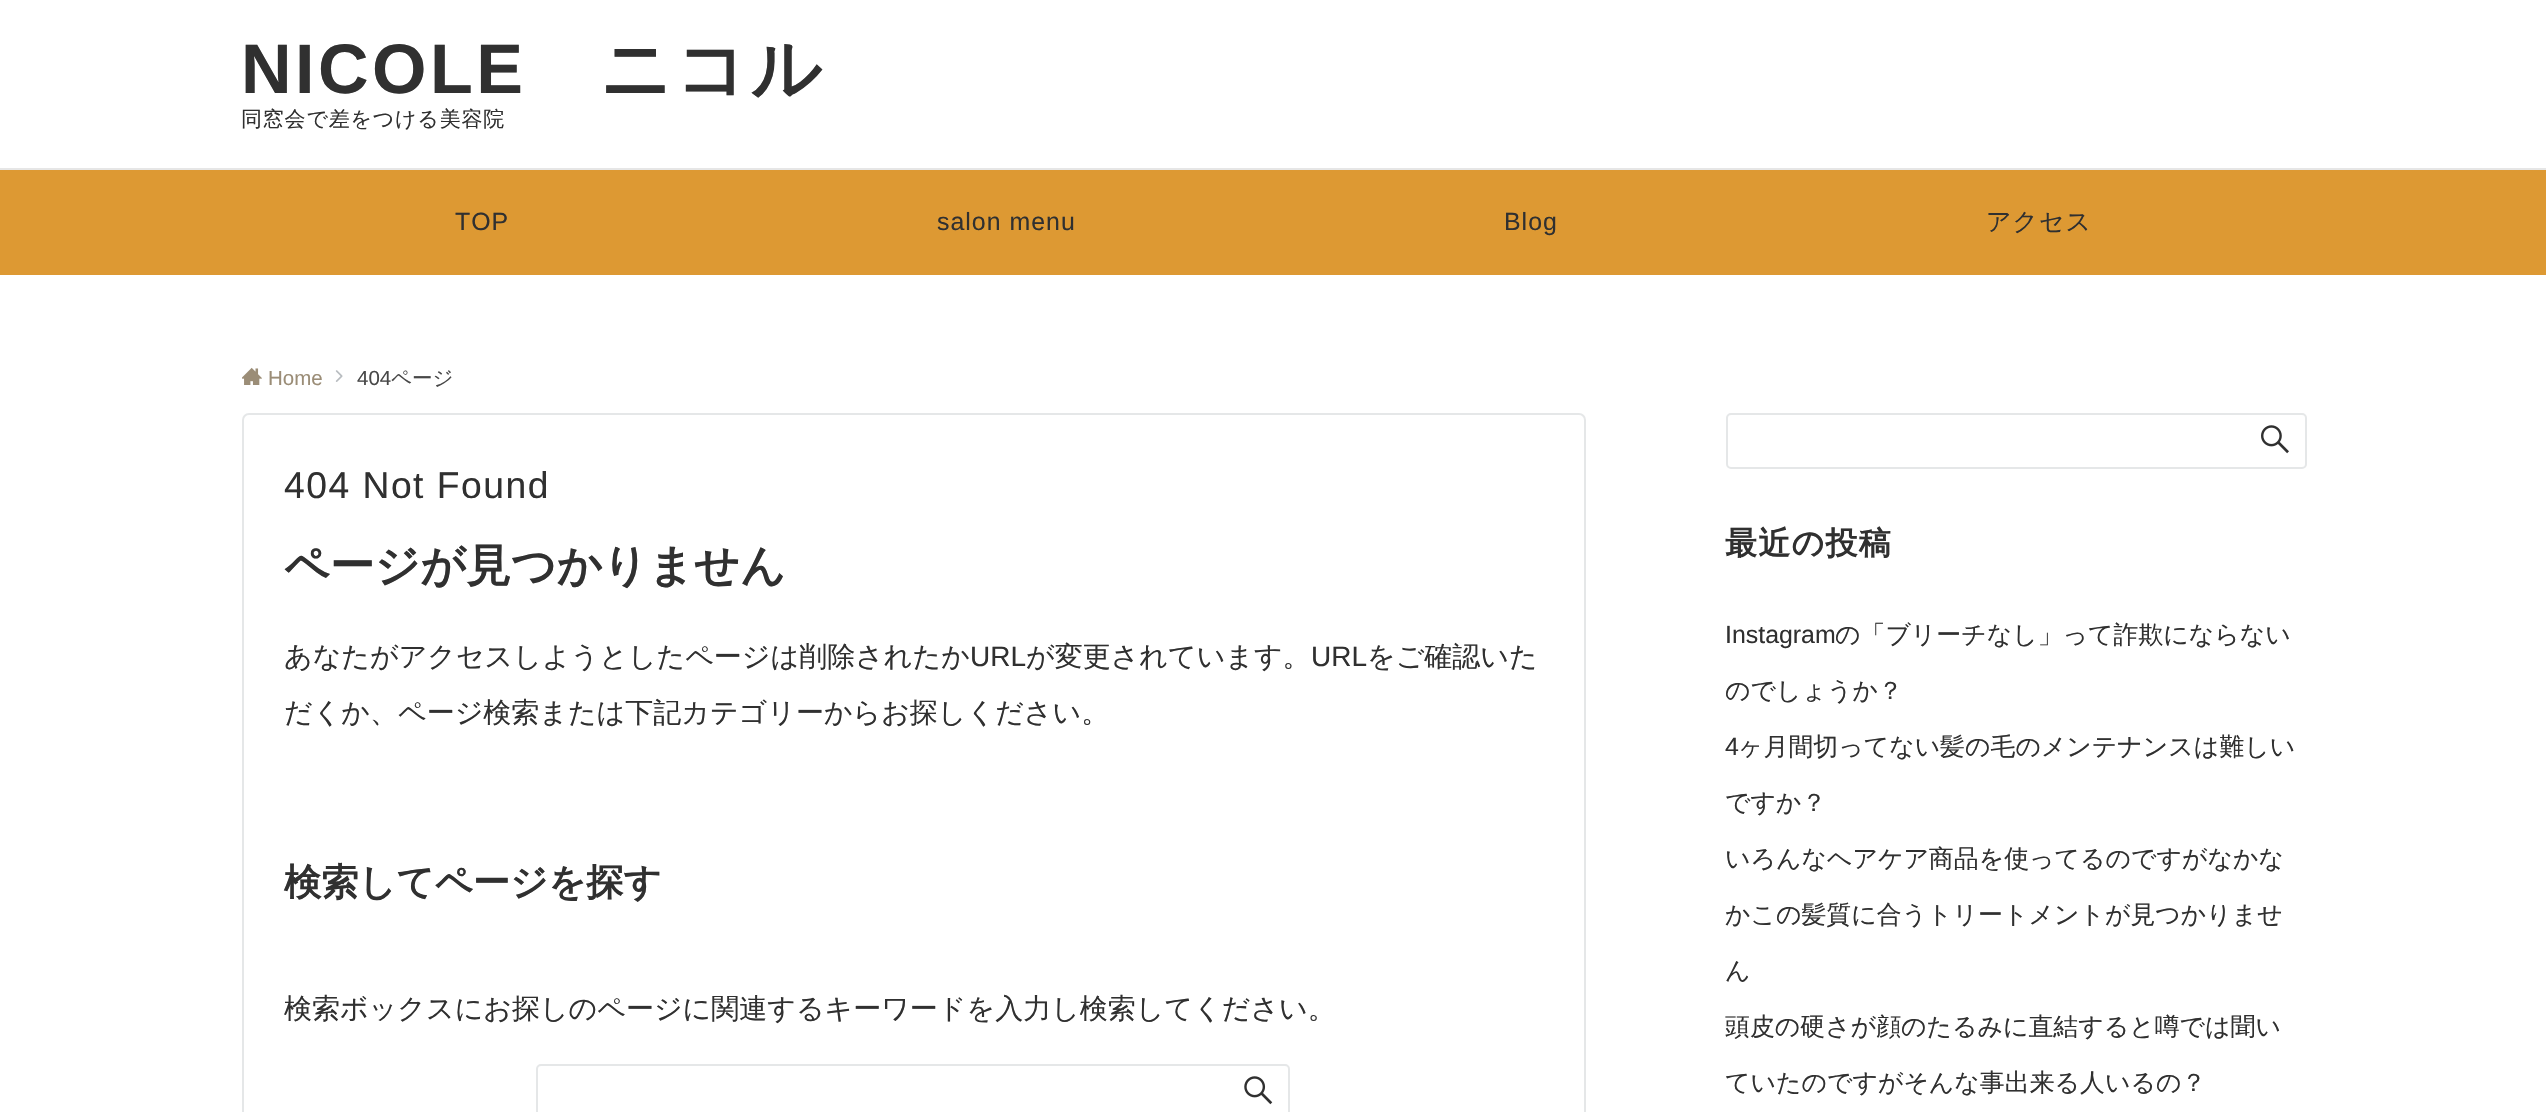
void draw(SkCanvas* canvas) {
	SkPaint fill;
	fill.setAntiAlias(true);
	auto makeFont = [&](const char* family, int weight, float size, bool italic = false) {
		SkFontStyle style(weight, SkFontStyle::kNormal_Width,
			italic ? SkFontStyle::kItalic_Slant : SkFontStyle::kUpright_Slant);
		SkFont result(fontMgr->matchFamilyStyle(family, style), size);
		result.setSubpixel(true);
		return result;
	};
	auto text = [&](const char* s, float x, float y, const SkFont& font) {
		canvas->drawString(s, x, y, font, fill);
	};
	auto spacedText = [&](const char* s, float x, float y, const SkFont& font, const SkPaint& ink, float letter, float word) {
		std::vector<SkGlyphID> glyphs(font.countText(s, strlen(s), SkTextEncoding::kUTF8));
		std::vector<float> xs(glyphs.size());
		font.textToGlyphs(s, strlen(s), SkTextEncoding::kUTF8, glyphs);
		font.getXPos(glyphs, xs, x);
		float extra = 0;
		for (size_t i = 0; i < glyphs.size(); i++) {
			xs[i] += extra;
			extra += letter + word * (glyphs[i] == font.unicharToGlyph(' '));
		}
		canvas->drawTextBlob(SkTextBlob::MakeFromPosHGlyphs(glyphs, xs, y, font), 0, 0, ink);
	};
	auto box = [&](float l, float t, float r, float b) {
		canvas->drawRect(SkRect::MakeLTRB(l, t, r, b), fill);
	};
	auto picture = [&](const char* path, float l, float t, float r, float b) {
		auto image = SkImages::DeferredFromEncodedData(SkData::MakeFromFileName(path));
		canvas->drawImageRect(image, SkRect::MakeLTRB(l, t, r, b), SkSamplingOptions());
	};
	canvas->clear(0xFFFFFFFF);
	fill.setColor(0xFFE6E6E6);
	box(0, 168, 2546, 170);
	fill.setColor(0xFFDD9933);
	box(0, 170, 2546, 275);
	picture("image0.png", 242, 367, 262, 385);
	picture("image1.png", 335, 370, 343, 382);
	fill.setStyle(SkPaint::kStroke_Style);
	fill.setStrokeWidth(2);
	fill.setColor(0xFFE5E7E8);
	canvas->drawRoundRect(SkRect::MakeLTRB(243, 414, 1585, 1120), 6, 6, fill);
	canvas->drawRoundRect(SkRect::MakeLTRB(537, 1065, 1289, 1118), 4, 4, fill);
	picture("image2.png", 1244, 1076, 1273, 1105);
	canvas->drawRoundRect(SkRect::MakeLTRB(1727, 414, 2306, 468), 4, 4, fill);
	picture("image3.png", 2261, 425, 2289, 454);
	auto font1 = makeFont("Liberation Sans", 700, 70);
	fill.setStyle(SkPaint::kFill_Style);
	fill.setColor(0xFF303030);
	spacedText("NICOLE", 241, 93, font1, fill, 3.5f, 0);
	auto font2 = makeFont("WenQuanYi Zen Hei", 700, 70);
	spacedText("ニコル", 600, 93, font2, fill, 3.5f, 0);
	auto font3 = makeFont("WenQuanYi Zen Hei", 500, 21);
	spacedText("同窓会で差をつける美容院", 241, 126, font3, fill, 0.8f, 0);
	auto font4 = makeFont("Liberation Sans", 400, 24.9f);
	spacedText("TOP", 455, 230, font4, fill, 1, 0);
	spacedText("salon menu", 937, 230, font4, fill, 1, 0);
	spacedText("Blog", 1504, 230, font4, fill, 1, 0);
	auto font5 = makeFont("WenQuanYi Zen Hei", 500, 24.9f);
	spacedText("アクセス", 1986, 230, font5, fill, 1, 0);
	auto font6 = makeFont("Liberation Sans", 400, 20.5f);
	fill.setColor(0xFF9B8D77);
	text("Home", 268, 385, font6);
	fill.setColor(0xFF484848);
	text("404", 357, 385, font6);
	auto font7 = makeFont("WenQuanYi Zen Hei", 500, 20.5f);
	text("ページ", 391, 385, font7);
	auto font8 = makeFont("Liberation Sans", 400, 37.25f);
	fill.setColor(0xFF303030);
	spacedText("404 Not Found", 284, 498, font8, fill, 1.5f, 0);
	auto font9 = makeFont("WenQuanYi Zen Hei", 700, 44.75f);
	text("ページが見つかりません", 284, 581, font9);
	auto font10 = makeFont("WenQuanYi Zen Hei", 500, 28);
	text("あなたがアクセスしようとしたページは削除されたか", 284, 666, font10);
	auto font11 = makeFont("Liberation Sans", 400, 28);
	text("URL", 970, 666, font11);
	text("が変更されています。", 1026, 666, font10);
	text("URL", 1311, 666, font11);
	text("をご確認いた", 1367, 666, font10);
	text("だくか、ページ検索または下記カテゴリーからお探しください。", 284, 722, font10);
	auto font12 = makeFont("WenQuanYi Zen Hei", 700, 37.25f);
	text("検索してページを探す", 284, 895, font12);
	text("検索ボックスにお探しのページに関連するキーワードを入力し検索してください。", 284, 1018, font10);
	auto font13 = makeFont("WenQuanYi Zen Hei", 700, 32);
	spacedText("最近の投稿", 1725, 554, font13, fill, 1.25f, 0);
	text("Instagram", 1725, 643, font4);
	text("の「ブリーチなし」って詐欺にならない", 1835, 643, font5);
	text("のでしょうか？", 1725, 699, font5);
	text("4", 1725, 755, font4);
	text("ヶ月間切ってない髪の毛のメンテナンスは難しい", 1738, 755, font5);
	text("ですか？", 1725, 811, font5);
	text("いろんなヘアケア商品を使ってるのですがなかな", 1725, 867, font5);
	text("かこの髪質に合うトリートメントが見つかりませ", 1725, 923, font5);
	text("ん", 1725, 979, font5);
	text("頭皮の硬さが顔のたるみに直結すると噂では聞い", 1725, 1035, font5);
	text("ていたのですがそんな事出来る人いるの？", 1725, 1091, font5);
}
